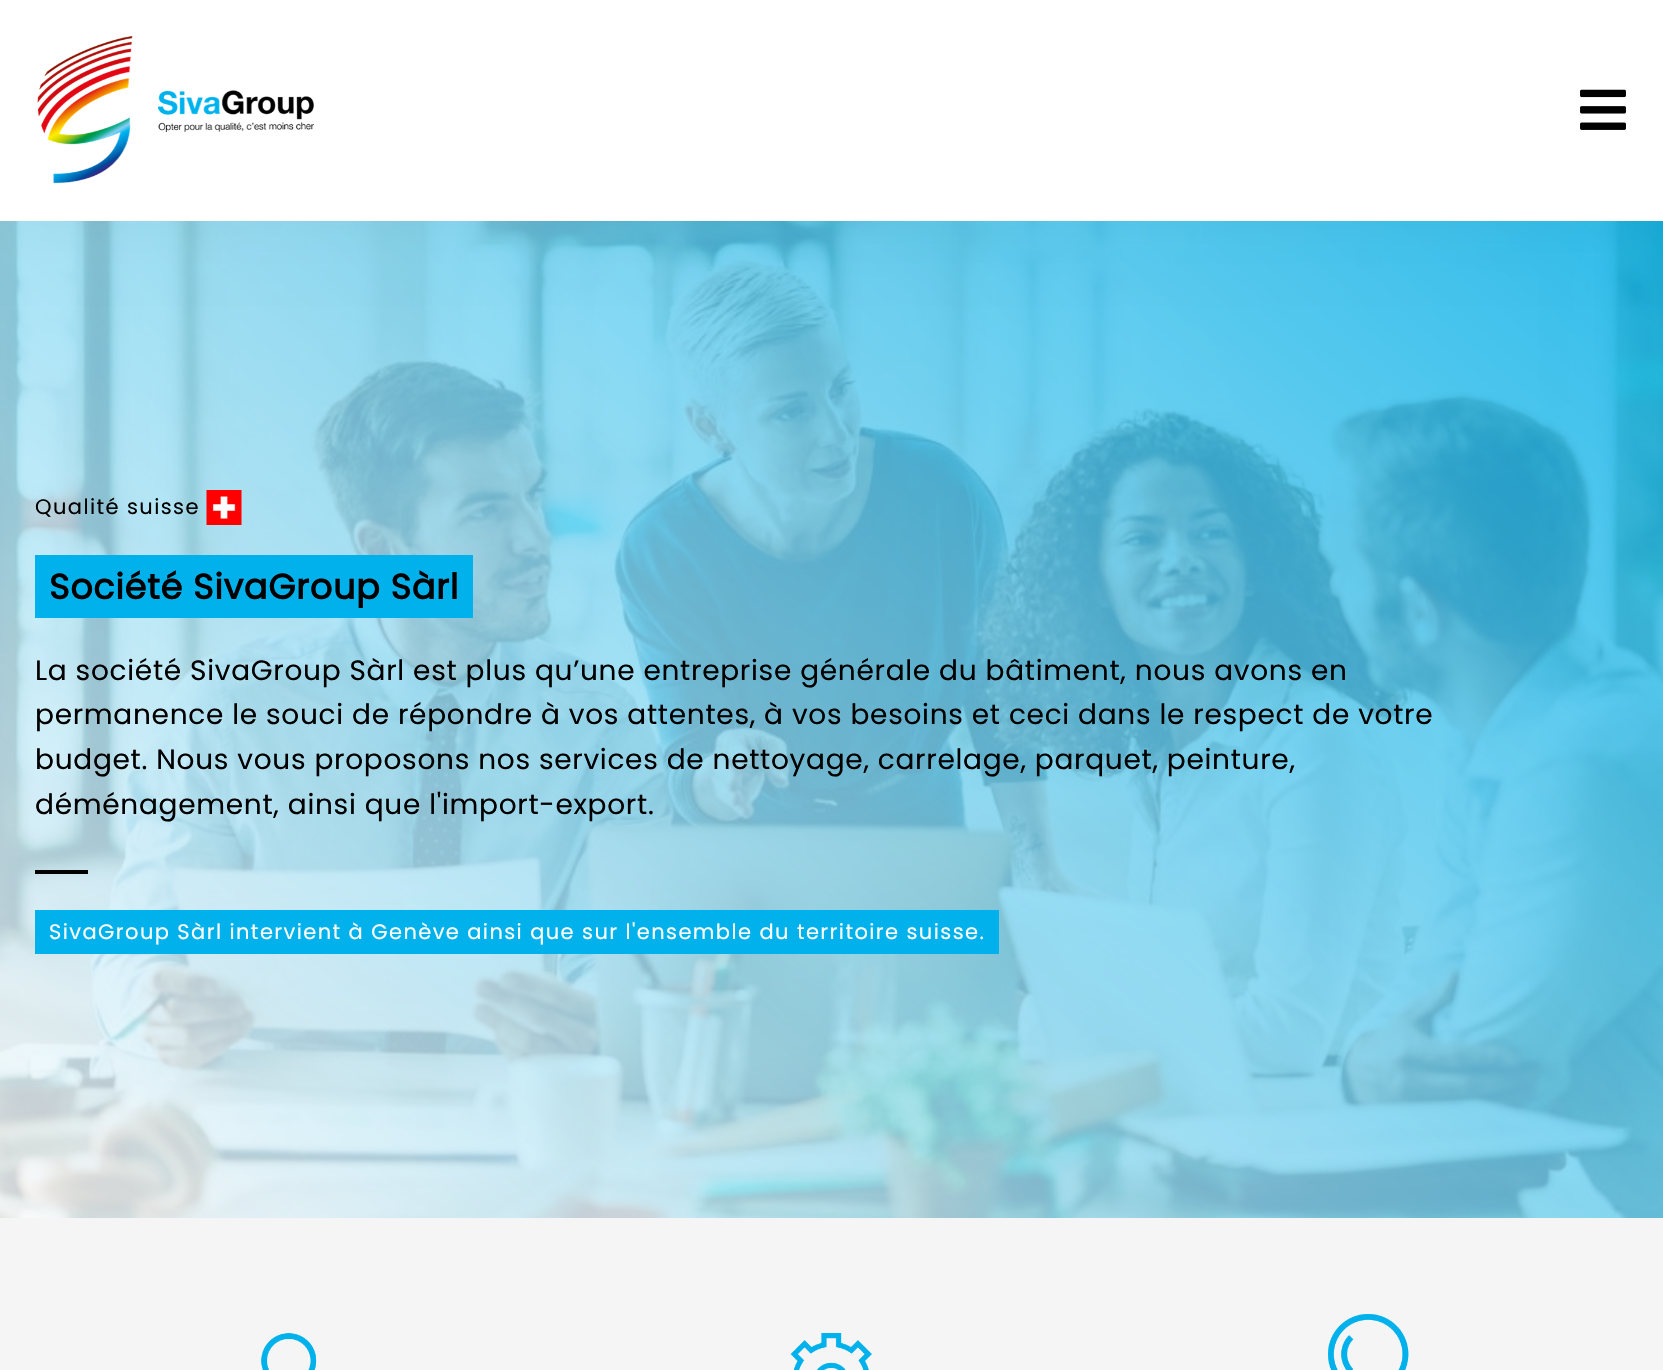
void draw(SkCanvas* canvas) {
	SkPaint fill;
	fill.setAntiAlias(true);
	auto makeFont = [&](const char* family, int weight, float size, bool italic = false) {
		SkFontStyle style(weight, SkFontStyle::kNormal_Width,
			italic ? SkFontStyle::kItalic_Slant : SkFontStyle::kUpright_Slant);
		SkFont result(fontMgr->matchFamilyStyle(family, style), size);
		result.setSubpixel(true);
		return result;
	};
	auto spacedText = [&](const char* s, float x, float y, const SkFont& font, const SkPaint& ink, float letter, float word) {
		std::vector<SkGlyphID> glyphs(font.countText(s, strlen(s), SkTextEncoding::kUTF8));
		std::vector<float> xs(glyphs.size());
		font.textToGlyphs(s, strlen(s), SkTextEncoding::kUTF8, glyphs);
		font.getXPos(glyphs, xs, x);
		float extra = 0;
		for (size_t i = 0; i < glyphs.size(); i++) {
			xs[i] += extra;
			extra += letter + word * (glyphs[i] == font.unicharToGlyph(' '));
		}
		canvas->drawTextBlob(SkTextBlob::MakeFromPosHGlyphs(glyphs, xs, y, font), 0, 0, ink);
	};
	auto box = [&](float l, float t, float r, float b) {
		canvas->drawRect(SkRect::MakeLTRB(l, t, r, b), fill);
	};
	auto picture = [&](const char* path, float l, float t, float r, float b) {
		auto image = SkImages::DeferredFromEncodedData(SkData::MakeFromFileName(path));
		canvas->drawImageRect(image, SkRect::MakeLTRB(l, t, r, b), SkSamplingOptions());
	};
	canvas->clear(0xFFFFFFFF);
	picture("image2.png", 0, 221, 1663, 1218);
	fill.setColor(0x0A000000);
	fill.setMaskFilter(SkMaskFilter::MakeBlur(kNormal_SkBlurStyle, 26));
	canvas->drawRect(SkRect::MakeLTRB(0, 9, 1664, 229), fill);
	fill.setMaskFilter(nullptr);
	fill.setColor(0xFFFFFFFF);
	box(0, 0, 1663, 221);
	picture("image0.png", 37, 36, 314, 184);
	picture("image1.png", 1580, 89, 1626, 130);
	picture("image3.png", 206, 490, 242, 525);
	fill.setColor(0xFF00B1EB);
	box(35, 555, 473, 618);
	fill.setColor(0xFF000000);
	box(35, 870, 88, 874);
	fill.setColor(0xFF00B1EB);
	box(35, 910, 999, 954);
	fill.setColor(0xFFF5F5F5);
	box(0, 1218, 1663, 1370);
	picture("image4.png", 261, 1333, 317, 1370);
	picture("image5.png", 790, 1333, 872, 1370);
	picture("image6.png", 1328, 1314, 1409, 1370);
	auto font1 = makeFont("Poppins", 400, 21);
	fill.setColor(0xFF000000);
	spacedText("Qualité suisse", 35, 514, font1, fill, 1.4f, 0);
	auto font2 = makeFont("Poppins", 700, 35);
	spacedText("Société SivaGroup Sàrl", 49, 599, font2, fill, 0.7f, 0);
	auto font3 = makeFont("Poppins", 400, 28);
	spacedText("La société SivaGroup Sàrl est plus qu’une entreprise générale du bâtiment, nous avons en", 35, 680, font3, fill, 0.7f, 0);
	spacedText("permanence le souci de répondre à vos attentes, à vos besoins et ceci dans le respect de votre", 35, 724, font3, fill, 0.7f, 0);
	spacedText("budget. Nous vous proposons nos services de nettoyage, carrelage, parquet, peinture,", 35, 769, font3, fill, 0.7f, 0);
	spacedText("déménagement, ainsi que l'import-export.", 35, 814, font3, fill, 0.7f, 0);
	fill.setColor(0xFFFFFFFF);
	spacedText("SivaGroup Sàrl intervient à Genève ainsi que sur l'ensemble du territoire suisse.", 49, 939, font1, fill, 1.4f, 0);
}
